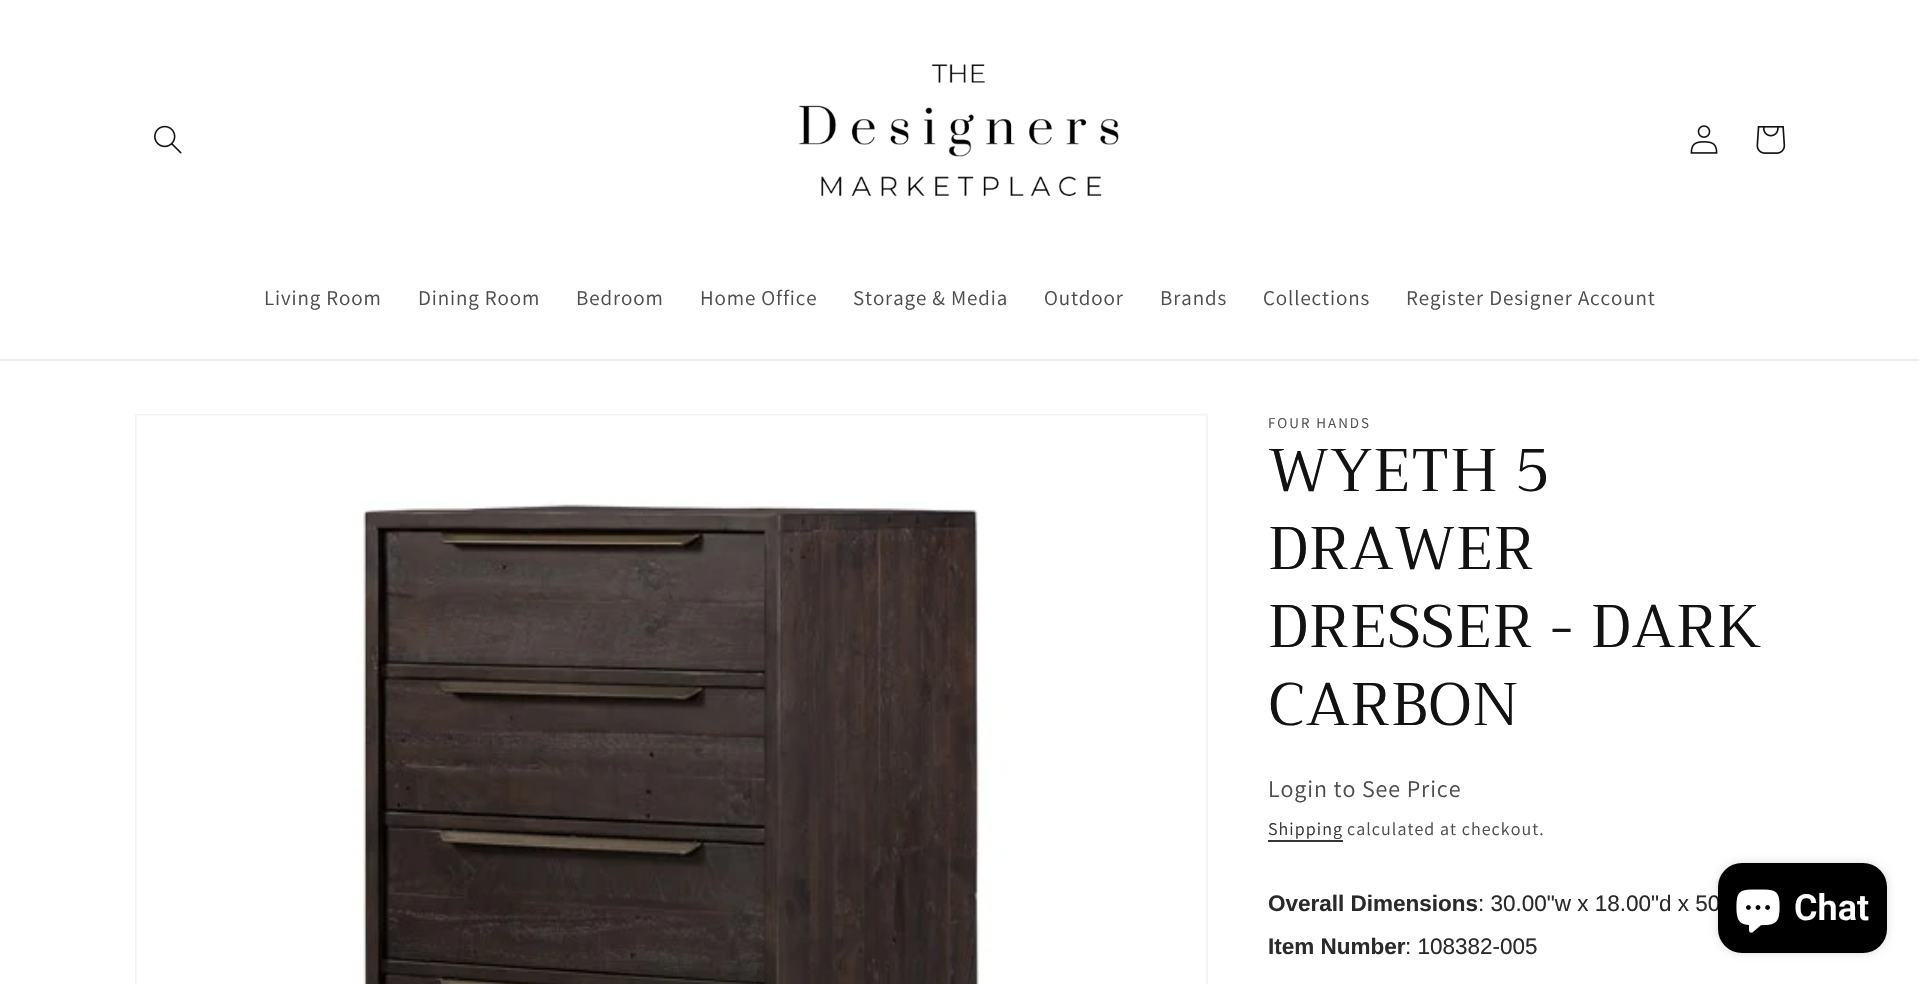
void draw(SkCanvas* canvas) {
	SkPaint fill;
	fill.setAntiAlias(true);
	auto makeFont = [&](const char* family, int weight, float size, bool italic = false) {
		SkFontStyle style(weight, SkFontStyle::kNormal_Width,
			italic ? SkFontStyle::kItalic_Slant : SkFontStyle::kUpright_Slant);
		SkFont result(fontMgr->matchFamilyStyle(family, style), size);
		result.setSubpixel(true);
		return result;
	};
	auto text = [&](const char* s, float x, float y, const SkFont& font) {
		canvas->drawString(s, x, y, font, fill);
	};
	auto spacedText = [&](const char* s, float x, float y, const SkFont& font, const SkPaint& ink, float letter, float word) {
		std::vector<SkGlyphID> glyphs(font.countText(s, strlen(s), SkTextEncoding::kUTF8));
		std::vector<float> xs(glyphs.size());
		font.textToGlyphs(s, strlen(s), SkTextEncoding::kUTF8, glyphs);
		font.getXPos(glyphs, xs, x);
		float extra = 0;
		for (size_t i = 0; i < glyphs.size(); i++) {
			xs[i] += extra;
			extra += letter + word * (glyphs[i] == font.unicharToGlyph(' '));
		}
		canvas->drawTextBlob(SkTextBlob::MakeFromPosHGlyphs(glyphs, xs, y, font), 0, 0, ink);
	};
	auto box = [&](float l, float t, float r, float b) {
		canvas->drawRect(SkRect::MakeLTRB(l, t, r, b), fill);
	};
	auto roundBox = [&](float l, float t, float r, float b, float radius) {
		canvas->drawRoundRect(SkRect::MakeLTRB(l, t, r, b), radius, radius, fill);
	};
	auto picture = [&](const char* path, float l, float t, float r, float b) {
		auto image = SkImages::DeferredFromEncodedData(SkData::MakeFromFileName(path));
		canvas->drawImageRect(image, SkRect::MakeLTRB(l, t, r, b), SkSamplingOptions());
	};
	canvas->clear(0xFFFFFFFF);
	fill.setColor(0xFFECECEC);
	box(0, 359, 1919, 361);
	picture("image0.png", 154, 125, 182, 154);
	picture("image1.png", 799, 63, 1119, 197);
	picture("image2.png", 1690, 125, 1718, 154);
	picture("image3.png", 1756, 126, 1786, 154);
	fill.setStyle(SkPaint::kStroke_Style);
	fill.setStrokeWidth(2);
	fill.setColor(0xFFF3F3F3);
	canvas->drawRect(SkRect::MakeLTRB(136, 415, 1207, 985), fill);
	picture("image4.png", 136, 415, 1206, 984);
	fill.setStyle(SkPaint::kFill_Style);
	fill.setColor(0xFF363636);
	box(1268, 840, 1343, 842);
	fill.setColor(0x26000000);
	fill.setMaskFilter(SkMaskFilter::MakeBlur(kNormal_SkBlurStyle, 4));
	canvas->drawRoundRect(SkRect::MakeLTRB(1718, 863, 1887, 953), 24, 24, fill);
	fill.setMaskFilter(nullptr);
	auto font1 = makeFont("Assistant", 400, 21);
	fill.setColor(0xFF4D4D4D);
	spacedText("Living Room", 264, 305, font1, fill, 0.9f, 0);
	spacedText("Dining Room", 418, 305, font1, fill, 0.9f, 0);
	spacedText("Bedroom", 576, 305, font1, fill, 0.9f, 0);
	spacedText("Home Office", 700, 305, font1, fill, 0.9f, 0);
	spacedText("Storage & Media", 853, 305, font1, fill, 0.9f, 0);
	spacedText("Outdoor", 1044, 305, font1, fill, 0.9f, 0);
	spacedText("Brands", 1160, 305, font1, fill, 0.9f, 0);
	spacedText("Collections", 1263, 305, font1, fill, 0.9f, 0);
	spacedText("Register Designer Account", 1406, 305, font1, fill, 0.9f, 0);
	auto font2 = makeFont("Assistant", 400, 15);
	spacedText("FOUR HANDS", 1268, 428, font2, fill, 2, 0);
	auto font3 = makeFont("Trirong", 400, 60);
	fill.setColor(0xFF121212);
	spacedText("WYETH 5", 1268, 491, font3, fill, 0.9f, 0);
	spacedText("DRAWER", 1268, 569, font3, fill, 0.9f, 0);
	spacedText("DRESSER - DARK", 1268, 647, font3, fill, 0.9f, 0);
	spacedText("CARBON", 1268, 725, font3, fill, 0.9f, 0);
	auto font4 = makeFont("Assistant", 400, 24);
	fill.setColor(0xFF4D4D4D);
	spacedText("Login to See Price", 1268, 797, font4, fill, 0.9f, 0);
	auto font5 = makeFont("Assistant", 400, 18);
	fill.setColor(0xFF363636);
	spacedText("Shipping", 1268, 835, font5, fill, 1.05f, 0);
	fill.setColor(0xFF4D4D4D);
	spacedText("calculated at checkout.", 1347, 835, font5, fill, 1.05f, 0);
	auto font6 = makeFont("Liberation Sans", 700, 22.5f);
	fill.setColor(0xFF2A2A2A);
	text("Overall Dimensions", 1268, 911, font6);
	auto font7 = makeFont("Liberation Sans", 400, 22.5f);
	text(": 30.00\"w x 18.00\"d x 50", 1478, 911, font7);
	text("Item Number", 1268, 954, font6);
	text(": 108382-005", 1405, 954, font7);
	fill.setColor(0xFF000000);
	roundBox(1718, 863, 1887, 953, 24);
	picture("image5.png", 1736, 889, 1780, 933);
	auto font8 = makeFont("Roboto", 600, 36);
	fill.setColor(0xFFFFFFFF);
	text("Chat", 1794, 920, font8);
}
